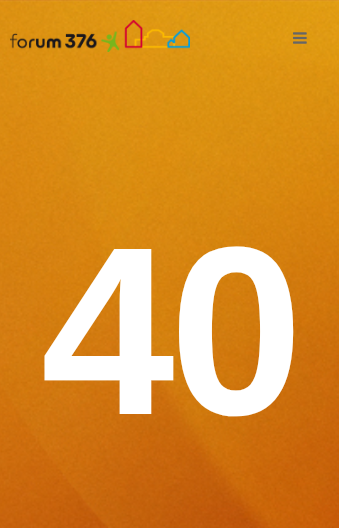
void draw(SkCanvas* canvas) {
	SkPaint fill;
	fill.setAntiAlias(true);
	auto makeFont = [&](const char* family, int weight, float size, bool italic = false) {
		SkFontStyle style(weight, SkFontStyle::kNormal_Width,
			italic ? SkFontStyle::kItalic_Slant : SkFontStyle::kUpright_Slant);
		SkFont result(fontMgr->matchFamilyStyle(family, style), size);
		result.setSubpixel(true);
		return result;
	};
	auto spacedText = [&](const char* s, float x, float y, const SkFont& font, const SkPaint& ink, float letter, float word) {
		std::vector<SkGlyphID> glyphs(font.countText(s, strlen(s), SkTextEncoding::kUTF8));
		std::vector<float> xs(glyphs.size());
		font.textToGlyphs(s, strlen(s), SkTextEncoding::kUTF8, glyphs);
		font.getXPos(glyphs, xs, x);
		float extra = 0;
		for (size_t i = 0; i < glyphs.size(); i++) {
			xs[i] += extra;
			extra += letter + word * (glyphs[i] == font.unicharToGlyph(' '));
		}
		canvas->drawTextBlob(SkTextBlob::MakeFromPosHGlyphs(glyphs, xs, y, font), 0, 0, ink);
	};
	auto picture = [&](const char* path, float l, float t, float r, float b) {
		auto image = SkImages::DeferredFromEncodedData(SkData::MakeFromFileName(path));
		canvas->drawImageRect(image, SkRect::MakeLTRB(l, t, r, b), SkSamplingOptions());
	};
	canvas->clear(0xFFFFFFFF);
	picture("image0.png", 0, 0, 339, 528);
	picture("image1.png", 10, 20, 190, 52);
	picture("image2.png", 293, 32, 307, 44);
	auto font1 = makeFont("Liberation Sans", 700, 240);
	fill.setColor(0xFFFFFFFF);
	spacedText("40", 41, 414, font1, fill, -5, 0);
}
